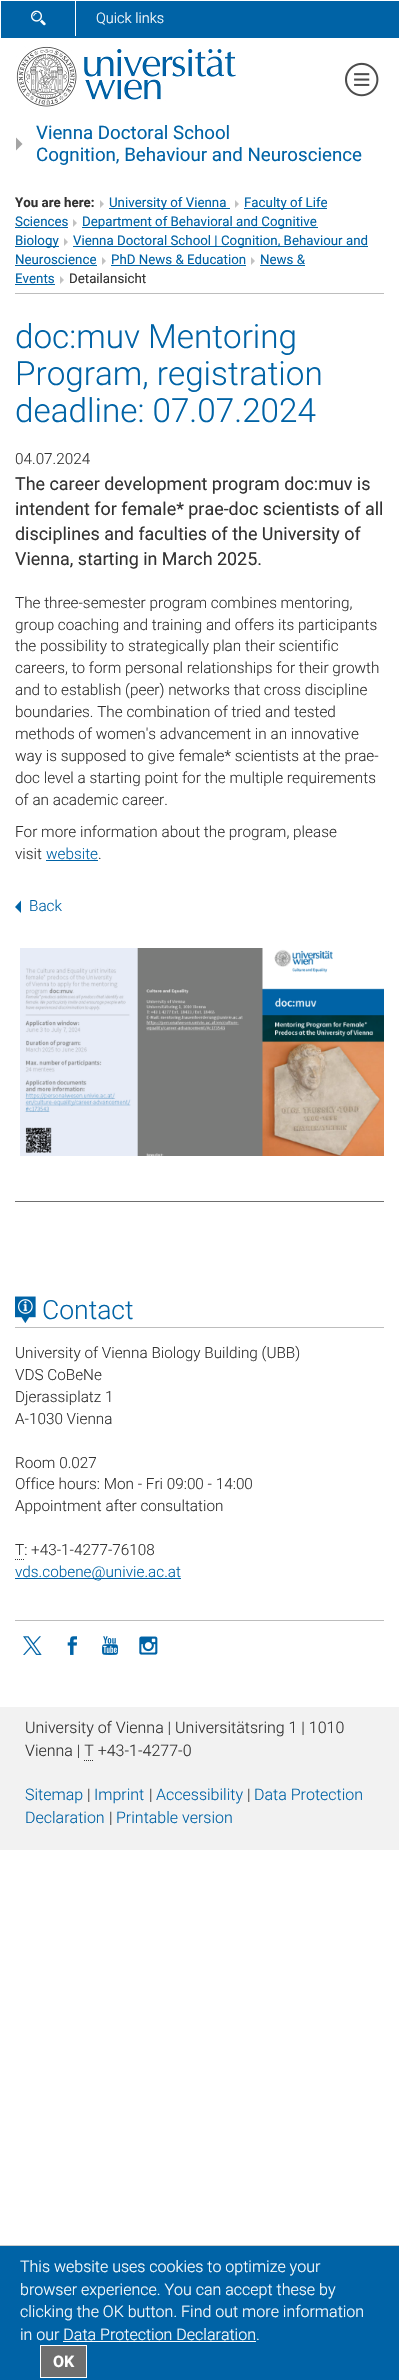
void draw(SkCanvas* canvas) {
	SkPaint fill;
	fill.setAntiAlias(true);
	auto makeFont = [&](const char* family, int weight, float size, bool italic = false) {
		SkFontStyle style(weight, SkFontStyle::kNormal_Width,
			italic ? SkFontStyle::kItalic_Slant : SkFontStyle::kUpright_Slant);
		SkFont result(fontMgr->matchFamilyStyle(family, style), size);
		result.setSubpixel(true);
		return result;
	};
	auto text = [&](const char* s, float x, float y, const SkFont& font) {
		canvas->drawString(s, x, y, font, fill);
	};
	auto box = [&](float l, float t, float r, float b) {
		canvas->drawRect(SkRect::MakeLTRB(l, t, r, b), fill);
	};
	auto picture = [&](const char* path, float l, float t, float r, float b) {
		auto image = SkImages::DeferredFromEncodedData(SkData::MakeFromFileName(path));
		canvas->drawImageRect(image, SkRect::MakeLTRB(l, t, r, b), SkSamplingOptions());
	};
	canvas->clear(0xFFFFFFFF);
	fill.setColor(0xFF0063A6);
	box(1, 1, 399, 38);
	fill.setColor(0xFFFFFFFF);
	box(75, 1, 76, 36);
	picture("image0.png", 31, 10, 46, 26);
	picture("image1.png", 16, 46, 236, 107);
	fill.setColor(0xFFA4A4A4);
	canvas->drawPath(SkPathBuilder().moveTo(16, 137.5f).lineTo(16, 150.5f).lineTo(22.5f, 144).close().detach(), fill);
	picture("image2.png", 345, 62, 379, 97);
	fill.setColor(0xFFC2C2C2);
	canvas->drawPath(SkPathBuilder().moveTo(100, 200).lineTo(100, 208).lineTo(104, 204).close().detach(), fill);
	fill.setColor(0xFF0063A6);
	box(109, 208, 230, 209);
	fill.setColor(0xFFC2C2C2);
	canvas->drawPath(SkPathBuilder().moveTo(235, 200).lineTo(235, 208).lineTo(239, 204).close().detach(), fill);
	fill.setColor(0xFF0063A6);
	box(244, 208, 327, 209);
	box(15, 227, 68, 228);
	fill.setColor(0xFFC2C2C2);
	canvas->drawPath(SkPathBuilder().moveTo(73, 219).lineTo(73, 227).lineTo(77, 223).close().detach(), fill);
	fill.setColor(0xFF0063A6);
	box(82, 227, 318, 228);
	box(15, 246, 59, 247);
	fill.setColor(0xFFC2C2C2);
	canvas->drawPath(SkPathBuilder().moveTo(64, 238).lineTo(64, 246).lineTo(68, 242).close().detach(), fill);
	fill.setColor(0xFF0063A6);
	box(73, 246, 368, 247);
	box(15, 265, 97, 266);
	fill.setColor(0xFFC2C2C2);
	canvas->drawPath(SkPathBuilder().moveTo(102, 257).lineTo(102, 265).lineTo(106, 261).close().detach(), fill);
	fill.setColor(0xFF0063A6);
	box(111, 265, 246, 266);
	fill.setColor(0xFFC2C2C2);
	canvas->drawPath(SkPathBuilder().moveTo(251, 257).lineTo(251, 265).lineTo(255, 261).close().detach(), fill);
	fill.setColor(0xFF0063A6);
	box(260, 265, 305, 266);
	box(15, 284, 55, 285);
	fill.setColor(0xFFC2C2C2);
	canvas->drawPath(SkPathBuilder().moveTo(60, 276).lineTo(60, 284).lineTo(64, 280).close().detach(), fill);
	fill.setColor(0xFFBDBDBD);
	box(15, 293, 384, 294);
	fill.setColor(0xFF0063A6);
	box(46, 860, 98, 861);
	canvas->drawPath(SkPathBuilder().moveTo(21, 900.5f).lineTo(21, 913).lineTo(15, 907).close().detach(), fill);
	picture("image3.png", 20, 948, 384, 1156);
	fill.setColor(0xFF6F6F6F);
	box(15, 1201, 384, 1202);
	fill.setColor(0xFFBDBDBD);
	box(15, 1327, 384, 1328);
	picture("image4.png", 15, 1296, 36, 1323);
	fill.setStyle(SkPaint::kStroke_Style);
	fill.setStrokeWidth(1);
	fill.setColor(0xFF333333);
	fill.setPathEffect(SkDashPathEffect::Make({{1, 1}}, 0));
	canvas->drawPath(SkPathBuilder().moveTo(15, 1559.5f).lineTo(24, 1559.5f).detach(), fill);
	fill.setPathEffect(nullptr);
	fill.setStyle(SkPaint::kFill_Style);
	fill.setColor(0xFF0063A6);
	box(15, 1578, 181, 1579);
	fill.setColor(0xFFBDBDBD);
	box(15, 1620, 384, 1621);
	picture("image5.png", 23, 1636, 42, 1655);
	picture("image6.png", 67, 1636, 77, 1655);
	picture("image7.png", 102, 1636, 118, 1655);
	picture("image8.png", 139, 1636, 158, 1655);
	fill.setColor(0xFFF2F2F2);
	box(0, 1707, 399, 1850);
	fill.setStyle(SkPaint::kStroke_Style);
	fill.setColor(0xFF333333);
	fill.setPathEffect(SkDashPathEffect::Make({{1, 1}}, 0));
	canvas->drawPath(SkPathBuilder().moveTo(84, 1760.5f).lineTo(94, 1760.5f).detach(), fill);
	fill.setPathEffect(nullptr);
	fill.setStyle(SkPaint::kFill_Style);
	fill.setColor(0xFF0063A6);
	box(0, 2246, 399, 2380);
	fill.setColor(0xFFCCCCCC);
	box(0, 2245, 399, 2246);
	fill.setColor(0xFFFFFFFF);
	box(63, 2341, 256, 2342);
	fill.setColor(0xFF6F6F6F);
	canvas->drawRect(SkRect::MakeLTRB(40.5f, 2345.5f, 86.5f, 2377.5f), fill);
	fill.setStyle(SkPaint::kStroke_Style);
	fill.setColor(0xFFFFFFFF);
	canvas->drawRect(SkRect::MakeLTRB(40.5f, 2345.5f, 86.5f, 2377.5f), fill);
	auto font1 = makeFont("Roboto", 300, 14.5f);
	fill.setStyle(SkPaint::kFill_Style);
	text("Quick links", 96, 23, font1);
	auto font2 = makeFont("Roboto", 400, 18.7f);
	fill.setColor(0xFF0063A6);
	text("Vienna Doctoral School", 36, 139, font2);
	text("Cognition, Behaviour and Neuroscience", 36, 161, font2);
	auto font3 = makeFont("Roboto", 700, 13.3f);
	fill.setColor(0xFF333333);
	text("You are here:", 15, 207, font3);
	auto font4 = makeFont("Roboto", 400, 13.3f);
	fill.setColor(0xFF0063A6);
	text("University of Vienna", 109, 207, font4);
	text("Faculty of Life", 244, 207, font4);
	text("Sciences", 15, 226, font4);
	text("Department of Behavioral and Cognitive", 82, 226, font4);
	text("Biology", 15, 245, font4);
	text("Vienna Doctoral School | Cognition, Behaviour and", 73, 245, font4);
	text("Neuroscience", 15, 264, font4);
	text("PhD News & Education", 111, 264, font4);
	text("News &", 260, 264, font4);
	text("Events", 15, 283, font4);
	fill.setColor(0xFF333333);
	text("Detailansicht", 69, 283, font4);
	auto font5 = makeFont("Roboto", 300, 33.25f);
	fill.setColor(0xFF0063A6);
	text("doc:muv Mentoring", 15, 348, font5);
	text("Program, registration", 15, 385, font5);
	text("deadline: 07.07.2024", 15, 422, font5);
	auto font6 = makeFont("Roboto", 300, 15.3f);
	fill.setColor(0xFF333333);
	text("04.07.2024", 15, 464, font6);
	auto font7 = makeFont("Roboto", 400, 17.9f);
	text("The career development program doc:muv is", 15, 490, font7);
	text("intendent for female* prae-doc scientists of all", 15, 515, font7);
	text("disciplines and faculties of the University of", 15, 540, font7);
	text("Vienna, starting in March 2025.", 15, 565, font7);
	text("The three-semester program combines mentoring,", 15, 608, font6);
	text("group coaching and training and offers its participants", 15, 630, font6);
	text("the possibility to strategically plan their scientific", 15, 651, font6);
	text("careers, to form personal relationships for their growth", 15, 673, font6);
	text("and to establish (peer) networks that cross discipline", 15, 695, font6);
	text("boundaries. The combination of tried and tested", 15, 717, font6);
	text("methods of women's advancement in an innovative", 15, 739, font6);
	text("way is supposed to give female* scientists at the prae-", 15, 761, font6);
	text("doc level a starting point for the multiple requirements", 15, 783, font6);
	text("of an academic career.", 15, 805, font6);
	text("For more information about the program, please", 15, 837, font6);
	text("visit", 15, 859, font6);
	fill.setColor(0xFF0063A6);
	text("website", 46, 859, font6);
	fill.setColor(0xFF333333);
	text(".", 98, 859, font6);
	fill.setColor(0xFF0063A6);
	text("Back", 29, 911, font6);
	auto font8 = makeFont("Roboto", 300, 26.5f);
	text("Contact", 42, 1319, font8);
	fill.setColor(0xFF333333);
	text("University of Vienna Biology Building (UBB)", 15, 1358, font6);
	text("VDS CoBeNe", 15, 1380, font6);
	text("Djerassiplatz 1", 15, 1402, font6);
	text("A-1030 Vienna", 15, 1424, font6);
	text("Room 0.027", 15, 1468, font6);
	text("Office hours: Mon - Fri 09:00 - 14:00", 15, 1489, font6);
	text("Appointment after consultation", 15, 1511, font6);
	text("T: +43-1-4277-76108", 15, 1555, font6);
	fill.setColor(0xFF0063A6);
	text("vds.cobene@univie.ac.at", 15, 1577, font6);
	auto font9 = makeFont("Roboto", 300, 16);
	fill.setColor(0xFF333333);
	text("University of Vienna | Universitätsring 1 | 1010", 25, 1733, font9);
	text("Vienna | T +43-1-4277-0", 25, 1756, font9);
	fill.setColor(0xFF0063A6);
	text("Sitemap", 25, 1800, font9);
	fill.setColor(0xFF333333);
	text("|", 87, 1800, font9);
	fill.setColor(0xFF0063A6);
	text("Imprint", 94, 1800, font9);
	fill.setColor(0xFF333333);
	text("|", 149, 1800, font9);
	fill.setColor(0xFF0063A6);
	text("Accessibility", 156, 1800, font9);
	fill.setColor(0xFF333333);
	text("|", 247, 1800, font9);
	fill.setColor(0xFF0063A6);
	text("Data Protection", 254, 1800, font9);
	text("Declaration", 25, 1823, font9);
	fill.setColor(0xFF333333);
	text("|", 109, 1823, font9);
	fill.setColor(0xFF0063A6);
	text("Printable version", 116, 1823, font9);
	fill.setColor(0xFFFFFFFF);
	text("This website uses cookies to optimize your", 20, 2272, font9);
	text("browser experience. You can accept these by", 20, 2295, font9);
	text("clicking the OK button. Find out more information", 20, 2317, font9);
	text("in our Data Protection Declaration.", 20, 2340, font9);
	auto font10 = makeFont("Roboto", 700, 16);
	text("OK", 53, 2367, font10);
}
